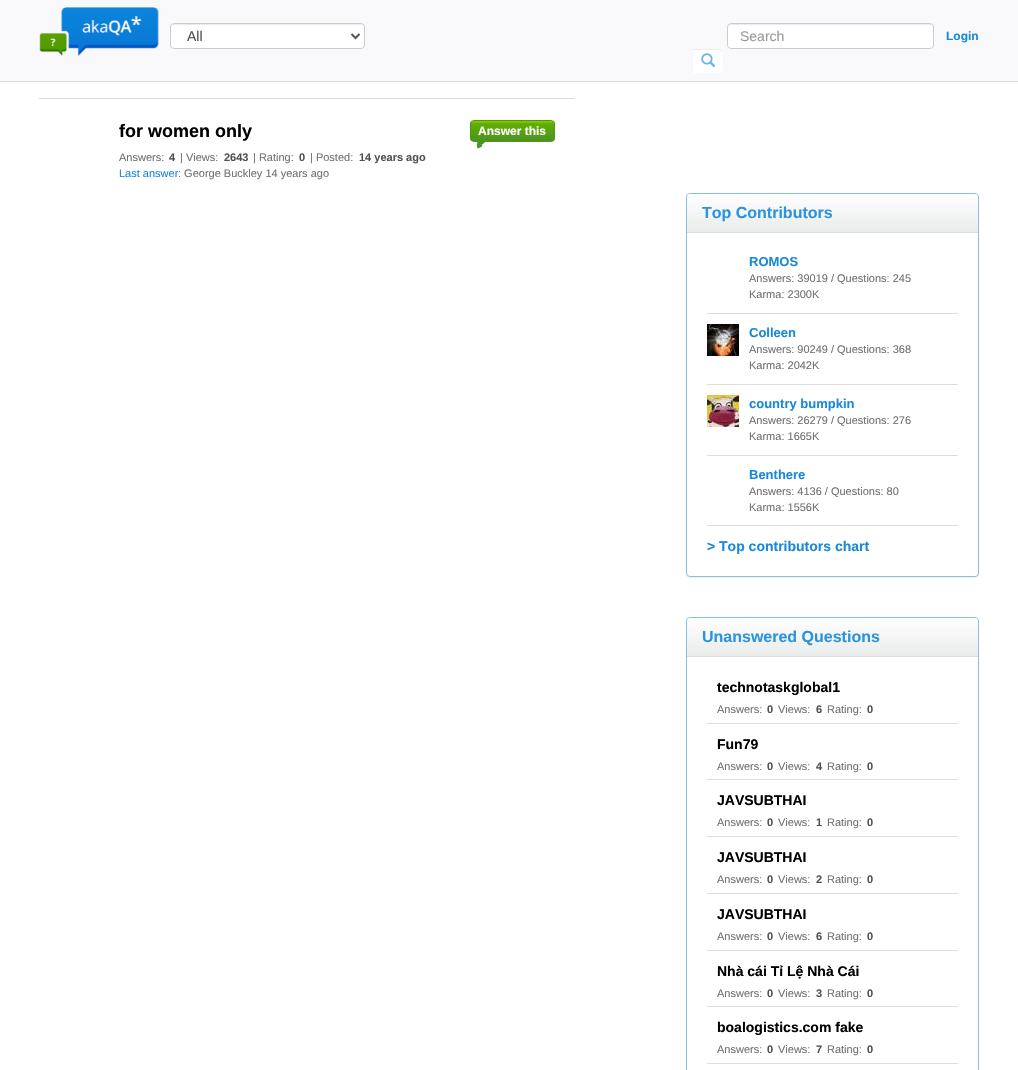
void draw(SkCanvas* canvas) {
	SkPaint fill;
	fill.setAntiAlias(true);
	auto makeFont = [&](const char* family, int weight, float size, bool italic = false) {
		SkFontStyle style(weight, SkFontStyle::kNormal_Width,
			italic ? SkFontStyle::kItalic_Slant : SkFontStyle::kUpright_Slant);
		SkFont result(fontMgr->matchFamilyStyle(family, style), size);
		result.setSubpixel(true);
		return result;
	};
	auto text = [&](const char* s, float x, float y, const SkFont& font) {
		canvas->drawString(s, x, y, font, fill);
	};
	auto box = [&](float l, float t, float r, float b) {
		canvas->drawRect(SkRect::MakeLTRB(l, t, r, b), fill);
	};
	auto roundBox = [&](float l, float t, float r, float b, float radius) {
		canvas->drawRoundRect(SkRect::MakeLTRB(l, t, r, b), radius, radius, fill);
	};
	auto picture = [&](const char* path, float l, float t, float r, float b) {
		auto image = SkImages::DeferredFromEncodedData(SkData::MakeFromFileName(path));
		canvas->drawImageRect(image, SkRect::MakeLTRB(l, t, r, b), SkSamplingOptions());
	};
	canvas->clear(0xFFFFFFFF);
	fill.setColor(0xFFF9F8FB);
	box(0, 0, 1018, 81);
	fill.setColor(0xFFD8DCDF);
	box(0, 81, 1018, 82);
	picture("image0.png", 39, 7, 159, 56);
	fill.setColor(0xFFFFFFFF);
	roundBox(170, 23, 365, 49, 4);
	fill.setColor(0xFFECECEC);
	canvas->drawPath(SkPathBuilder().moveTo(174, 25).lineTo(361, 25).cubicTo(363, 25, 364, 26, 364, 28).cubicTo(364, 26, 363, 24, 361, 24).lineTo(174, 24).cubicTo(172, 24, 171, 26, 171, 28).cubicTo(171, 26, 172, 25, 174, 25).close().detach(), fill);
	fill.setStyle(SkPaint::kStroke_Style);
	fill.setStrokeWidth(1);
	fill.setColor(0xFFCCCCCC);
	canvas->drawRoundRect(SkRect::MakeLTRB(170.5f, 23.5f, 364.5f, 48.5f), 3.5f, 3.5f, fill);
	fill.setStrokeWidth(2);
	fill.setColor(0xFF555555);
	canvas->drawPath(SkPathBuilder().moveTo(351.5f, 34).lineTo(355.5f, 38).lineTo(359.5f, 34).detach(), fill);
	fill.setStyle(SkPaint::kFill_Style);
	fill.setColor(0xFFFFFFFF);
	roundBox(727, 23, 934, 49, 4);
	fill.setColor(0xFFECECEC);
	canvas->drawPath(SkPathBuilder().moveTo(731, 25).lineTo(930, 25).cubicTo(932, 25, 933, 26, 933, 28).cubicTo(933, 26, 932, 24, 930, 24).lineTo(731, 24).cubicTo(729, 24, 728, 26, 728, 28).cubicTo(728, 26, 729, 25, 731, 25).close().detach(), fill);
	fill.setStyle(SkPaint::kStroke_Style);
	fill.setStrokeWidth(1);
	fill.setColor(0xFFC9CDD0);
	canvas->drawRoundRect(SkRect::MakeLTRB(727.5f, 23.5f, 933.5f, 48.5f), 3.5f, 3.5f, fill);
	fill.setStyle(SkPaint::kFill_Style);
	fill.setColor(0xFFFFFFFF);
	canvas->drawPath(SkPathBuilder().moveTo(693, 49).lineTo(719, 49).cubicTo(721, 49, 723, 51, 723, 53).lineTo(723, 69).cubicTo(723, 71, 721, 73, 719, 73).lineTo(693, 73).close().detach(), fill);
	fill.setColor(0xFFECECEC);
	canvas->drawPath(SkPathBuilder().moveTo(693, 50).lineTo(715, 50).cubicTo(720.5f, 50, 722.5f, 50.5f, 723, 53).cubicTo(723, 51, 721, 49, 719, 49).lineTo(693, 49).close().detach(), fill);
	picture("image1.png", 701, 53, 716, 68);
	fill.setColor(0xFFDBDFE0);
	box(39, 98, 575, 99);
	canvas->save();
	canvas->clipPath(SkPathBuilder().moveTo(474, 120).lineTo(551, 120).cubicTo(553, 120, 555, 122, 555, 124).lineTo(555, 138).cubicTo(555, 140, 553, 142, 551, 142).lineTo(474, 142).cubicTo(472, 142, 470, 140, 470, 138).lineTo(470, 124).cubicTo(470, 122, 472, 120, 474, 120).close().detach(), true);
	{
		const SkColor colors[] = {0xFF84C300, 0xFF63AF00, 0xFF4B9224};
		const float stops[] = {0.07f, 0.09f, 1};
		const SkPoint ends[] = {{513, 121}, {513, 141}};
		fill.setShader(SkGradientShader::MakeLinear(ends, colors, stops, 3, SkTileMode::kClamp));
		fill.setAlpha(255);
	}
	box(470, 121, 555, 141);
	canvas->restore();
	fill.setStyle(SkPaint::kStroke_Style);
	fill.setShader(nullptr);
	fill.setColor(0xFF4D9814);
	canvas->drawRoundRect(SkRect::MakeLTRB(470.5f, 120.5f, 554.5f, 141.5f), 3.5f, 3.5f, fill);
	fill.setStyle(SkPaint::kFill_Style);
	fill.setColor(0xFF4C9321);
	canvas->drawPath(SkPathBuilder().moveTo(479, 140).cubicTo(478, 140, 477.5f, 140.5f, 477.5f, 141).lineTo(478, 144.5f).lineTo(482.5f, 144.5f).lineTo(486.5f, 140.5f).cubicTo(486, 140, 485.5f, 140, 484, 140).close().detach(), fill);
	canvas->drawPath(SkPathBuilder().moveTo(477, 142).lineTo(477.5f, 141).lineTo(478, 144.5f).lineTo(482, 144.5f).lineTo(482, 146.5f).lineTo(478, 148.5f).cubicTo(476.5f, 147.5f, 477, 143.5f, 477, 142).close().detach(), fill);
	fill.setColor(0xFF4B9224);
	canvas->drawPath(SkPathBuilder().moveTo(480, 143).cubicTo(480.5f, 143, 481, 143.5f, 481.5f, 143.5f).lineTo(480.5f, 145).lineTo(479.5f, 145).lineTo(478.5f, 143.5f).cubicTo(479, 143.5f, 479.5f, 143, 480, 143).close().detach(), fill);
	canvas->drawPath(SkPathBuilder().moveTo(480, 146).lineTo(479, 146.5f).cubicTo(478, 146, 478, 144.5f, 478.5f, 143.5f).lineTo(479.5f, 145).lineTo(480, 145).close().detach(), fill);
	fill.setColor(0x0D000000);
	fill.setMaskFilter(SkMaskFilter::MakeBlur(kNormal_SkBlurStyle, 0.5f));
	canvas->drawRoundRect(SkRect::MakeLTRB(686, 194, 979, 578), 4, 4, fill);
	fill.setMaskFilter(nullptr);
	fill.setColor(0xFFFFFFFF);
	canvas->drawRoundRect(SkRect::MakeLTRB(686.5f, 193.5f, 978.5f, 576.5f), 3.5f, 3.5f, fill);
	fill.setStyle(SkPaint::kStroke_Style);
	fill.setColor(0xFF82C0EC);
	canvas->drawRoundRect(SkRect::MakeLTRB(686.5f, 193.5f, 978.5f, 576.5f), 3.5f, 3.5f, fill);
	fill.setStyle(SkPaint::kFill_Style);
	{
		const SkColor colors[] = {0xFFFFFFFF, 0xFFE9ECEA};
		const float stops[] = {0, 1};
		const SkPoint ends[] = {{833, 194}, {833, 232}};
		fill.setShader(SkGradientShader::MakeLinear(ends, colors, stops, 2, SkTileMode::kClamp));
		fill.setAlpha(255);
	}
	canvas->drawPath(SkPathBuilder().moveTo(690, 194).lineTo(975, 194).cubicTo(976.5f, 194, 978, 195.5f, 978, 197).lineTo(978, 232).lineTo(687, 232).lineTo(687, 197).cubicTo(687, 195.5f, 688.5f, 194, 690, 194).close().detach(), fill);
	fill.setShader(nullptr);
	fill.setColor(0xFFDDDDDD);
	box(687, 232, 978, 233);
	box(707, 313, 958, 314);
	box(707, 384, 958, 385);
	picture("image2.png", 707, 324, 739, 356);
	box(707, 455, 958, 456);
	picture("image3.png", 707, 395, 739, 427);
	box(707, 525, 958, 526);
	fill.setStyle(SkPaint::kStroke_Style);
	fill.setColor(0xFF82C0EC);
	canvas->drawRoundRect(SkRect::MakeLTRB(686.5f, 617.5f, 978.5f, 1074.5f), 3.5f, 3.5f, fill);
	fill.setStyle(SkPaint::kFill_Style);
	{
		const SkColor colors[] = {0xFFFFFFFF, 0xFFE9ECEA};
		const float stops[] = {0, 1};
		const SkPoint ends[] = {{833, 618}, {833, 656}};
		fill.setShader(SkGradientShader::MakeLinear(ends, colors, stops, 2, SkTileMode::kClamp));
		fill.setAlpha(255);
	}
	canvas->drawPath(SkPathBuilder().moveTo(690, 618).lineTo(975, 618).cubicTo(976.5f, 618, 978, 619.5f, 978, 621).lineTo(978, 656).lineTo(687, 656).lineTo(687, 621).cubicTo(687, 619.5f, 688.5f, 618, 690, 618).close().detach(), fill);
	fill.setShader(nullptr);
	fill.setColor(0xFFDDDDDD);
	box(687, 656, 978, 657);
	fill.setColor(0xFFDBDFE0);
	box(707, 723, 958, 724);
	box(707, 779, 958, 780);
	box(707, 836, 958, 837);
	box(707, 893, 958, 894);
	box(707, 950, 958, 951);
	box(707, 1006, 958, 1007);
	box(707, 1063, 958, 1064);
	auto font1 = makeFont("Liberation Sans", 400, 14);
	fill.setColor(0xFF515151);
	text("All", 187, 41, font1);
	fill.setColor(0xFF999999);
	text("Search", 740, 41, font1);
	auto font2 = makeFont("Liberation Sans", 700, 12);
	fill.setColor(0xFF1889DB);
	text("Login", 946, 40, font2);
	auto font3 = makeFont("Liberation Sans", 700, 18);
	fill.setColor(0xFF000000);
	text("for women only", 119, 137, font3);
	auto font4 = makeFont("Liberation Sans", 400, 11);
	fill.setColor(0xFF717171);
	text("Answers:", 119, 161, font4);
	auto font5 = makeFont("Liberation Sans", 700, 11);
	fill.setColor(0xFF515151);
	text("4", 169, 161, font5);
	fill.setColor(0xFF717171);
	text("| Views:", 180, 161, font4);
	fill.setColor(0xFF515151);
	text("2643", 224, 161, font5);
	fill.setColor(0xFF717171);
	text("| Rating:", 253, 161, font4);
	fill.setColor(0xFF515151);
	text("0", 299, 161, font5);
	fill.setColor(0xFF717171);
	text("| Posted:", 310, 161, font4);
	fill.setColor(0xFF515151);
	text("14 years ago", 359, 161, font5);
	fill.setColor(0xFF1889DB);
	text("Last answer", 119, 177, font4);
	fill.setColor(0xFF717171);
	text(": George Buckley 14 years ago", 178, 177, font4);
	fill.setColor(0xFFFFFFFF);
	text("Answer this", 478, 135, font2);
	auto font6 = makeFont("Liberation Sans", 700, 16);
	fill.setColor(0xFF2A94DE);
	text("Top Contributors", 702, 218, font6);
	auto font7 = makeFont("Liberation Sans", 700, 13);
	fill.setColor(0xFF1889DB);
	text("ROMOS", 749, 266, font7);
	fill.setColor(0xFF717171);
	text("Answers: 39019 / Questions: 245", 749, 282, font4);
	text("Karma: 2300K", 749, 298, font4);
	fill.setColor(0xFF1889DB);
	text("Colleen", 749, 337, font7);
	fill.setColor(0xFF717171);
	text("Answers: 90249 / Questions: 368", 749, 353, font4);
	text("Karma: 2042K", 749, 369, font4);
	fill.setColor(0xFF1889DB);
	text("country bumpkin", 749, 408, font7);
	fill.setColor(0xFF717171);
	text("Answers: 26279 / Questions: 276", 749, 424, font4);
	text("Karma: 1665K", 749, 440, font4);
	fill.setColor(0xFF1889DB);
	text("Benthere", 749, 479, font7);
	fill.setColor(0xFF717171);
	text("Answers: 4136 / Questions: 80", 749, 495, font4);
	text("Karma: 1556K", 749, 511, font4);
	auto font8 = makeFont("Liberation Sans", 700, 14);
	fill.setColor(0xFF1889DB);
	text("> Top contributors chart", 707, 551, font8);
	fill.setColor(0xFF2A94DE);
	text("Unanswered Questions", 702, 642, font6);
	fill.setColor(0xFF000000);
	text("technotaskglobal1", 717, 692, font8);
	fill.setColor(0xFF717171);
	text("Answers:", 717, 713, font4);
	fill.setColor(0xFF515151);
	text("0", 767, 713, font5);
	fill.setColor(0xFF717171);
	text("Views:", 778, 713, font4);
	fill.setColor(0xFF515151);
	text("6", 816, 713, font5);
	fill.setColor(0xFF717171);
	text("Rating:", 827, 713, font4);
	fill.setColor(0xFF515151);
	text("0", 867, 713, font5);
	fill.setColor(0xFF000000);
	text("Fun79", 717, 749, font8);
	fill.setColor(0xFF717171);
	text("Answers:", 717, 770, font4);
	fill.setColor(0xFF515151);
	text("0", 767, 770, font5);
	fill.setColor(0xFF717171);
	text("Views:", 778, 770, font4);
	fill.setColor(0xFF515151);
	text("4", 816, 770, font5);
	fill.setColor(0xFF717171);
	text("Rating:", 827, 770, font4);
	fill.setColor(0xFF515151);
	text("0", 867, 770, font5);
	fill.setColor(0xFF000000);
	text("JAVSUBTHAI", 717, 805, font8);
	fill.setColor(0xFF717171);
	text("Answers:", 717, 826, font4);
	fill.setColor(0xFF515151);
	text("0", 767, 826, font5);
	fill.setColor(0xFF717171);
	text("Views:", 778, 826, font4);
	fill.setColor(0xFF515151);
	text("1", 816, 826, font5);
	fill.setColor(0xFF717171);
	text("Rating:", 827, 826, font4);
	fill.setColor(0xFF515151);
	text("0", 867, 826, font5);
	fill.setColor(0xFF000000);
	text("JAVSUBTHAI", 717, 862, font8);
	fill.setColor(0xFF717171);
	text("Answers:", 717, 883, font4);
	fill.setColor(0xFF515151);
	text("0", 767, 883, font5);
	fill.setColor(0xFF717171);
	text("Views:", 778, 883, font4);
	fill.setColor(0xFF515151);
	text("2", 816, 883, font5);
	fill.setColor(0xFF717171);
	text("Rating:", 827, 883, font4);
	fill.setColor(0xFF515151);
	text("0", 867, 883, font5);
	fill.setColor(0xFF000000);
	text("JAVSUBTHAI", 717, 919, font8);
	fill.setColor(0xFF717171);
	text("Answers:", 717, 940, font4);
	fill.setColor(0xFF515151);
	text("0", 767, 940, font5);
	fill.setColor(0xFF717171);
	text("Views:", 778, 940, font4);
	fill.setColor(0xFF515151);
	text("6", 816, 940, font5);
	fill.setColor(0xFF717171);
	text("Rating:", 827, 940, font4);
	fill.setColor(0xFF515151);
	text("0", 867, 940, font5);
	fill.setColor(0xFF000000);
	text("Nhà cái Tỉ Lệ Nhà Cái", 717, 976, font8);
	fill.setColor(0xFF717171);
	text("Answers:", 717, 997, font4);
	fill.setColor(0xFF515151);
	text("0", 767, 997, font5);
	fill.setColor(0xFF717171);
	text("Views:", 778, 997, font4);
	fill.setColor(0xFF515151);
	text("3", 816, 997, font5);
	fill.setColor(0xFF717171);
	text("Rating:", 827, 997, font4);
	fill.setColor(0xFF515151);
	text("0", 867, 997, font5);
	fill.setColor(0xFF000000);
	text("boalogistics.com fake", 717, 1032, font8);
	fill.setColor(0xFF717171);
	text("Answers:", 717, 1053, font4);
	fill.setColor(0xFF515151);
	text("0", 767, 1053, font5);
	fill.setColor(0xFF717171);
	text("Views:", 778, 1053, font4);
	fill.setColor(0xFF515151);
	text("7", 816, 1053, font5);
	fill.setColor(0xFF717171);
	text("Rating:", 827, 1053, font4);
	fill.setColor(0xFF515151);
	text("0", 867, 1053, font5);
}
